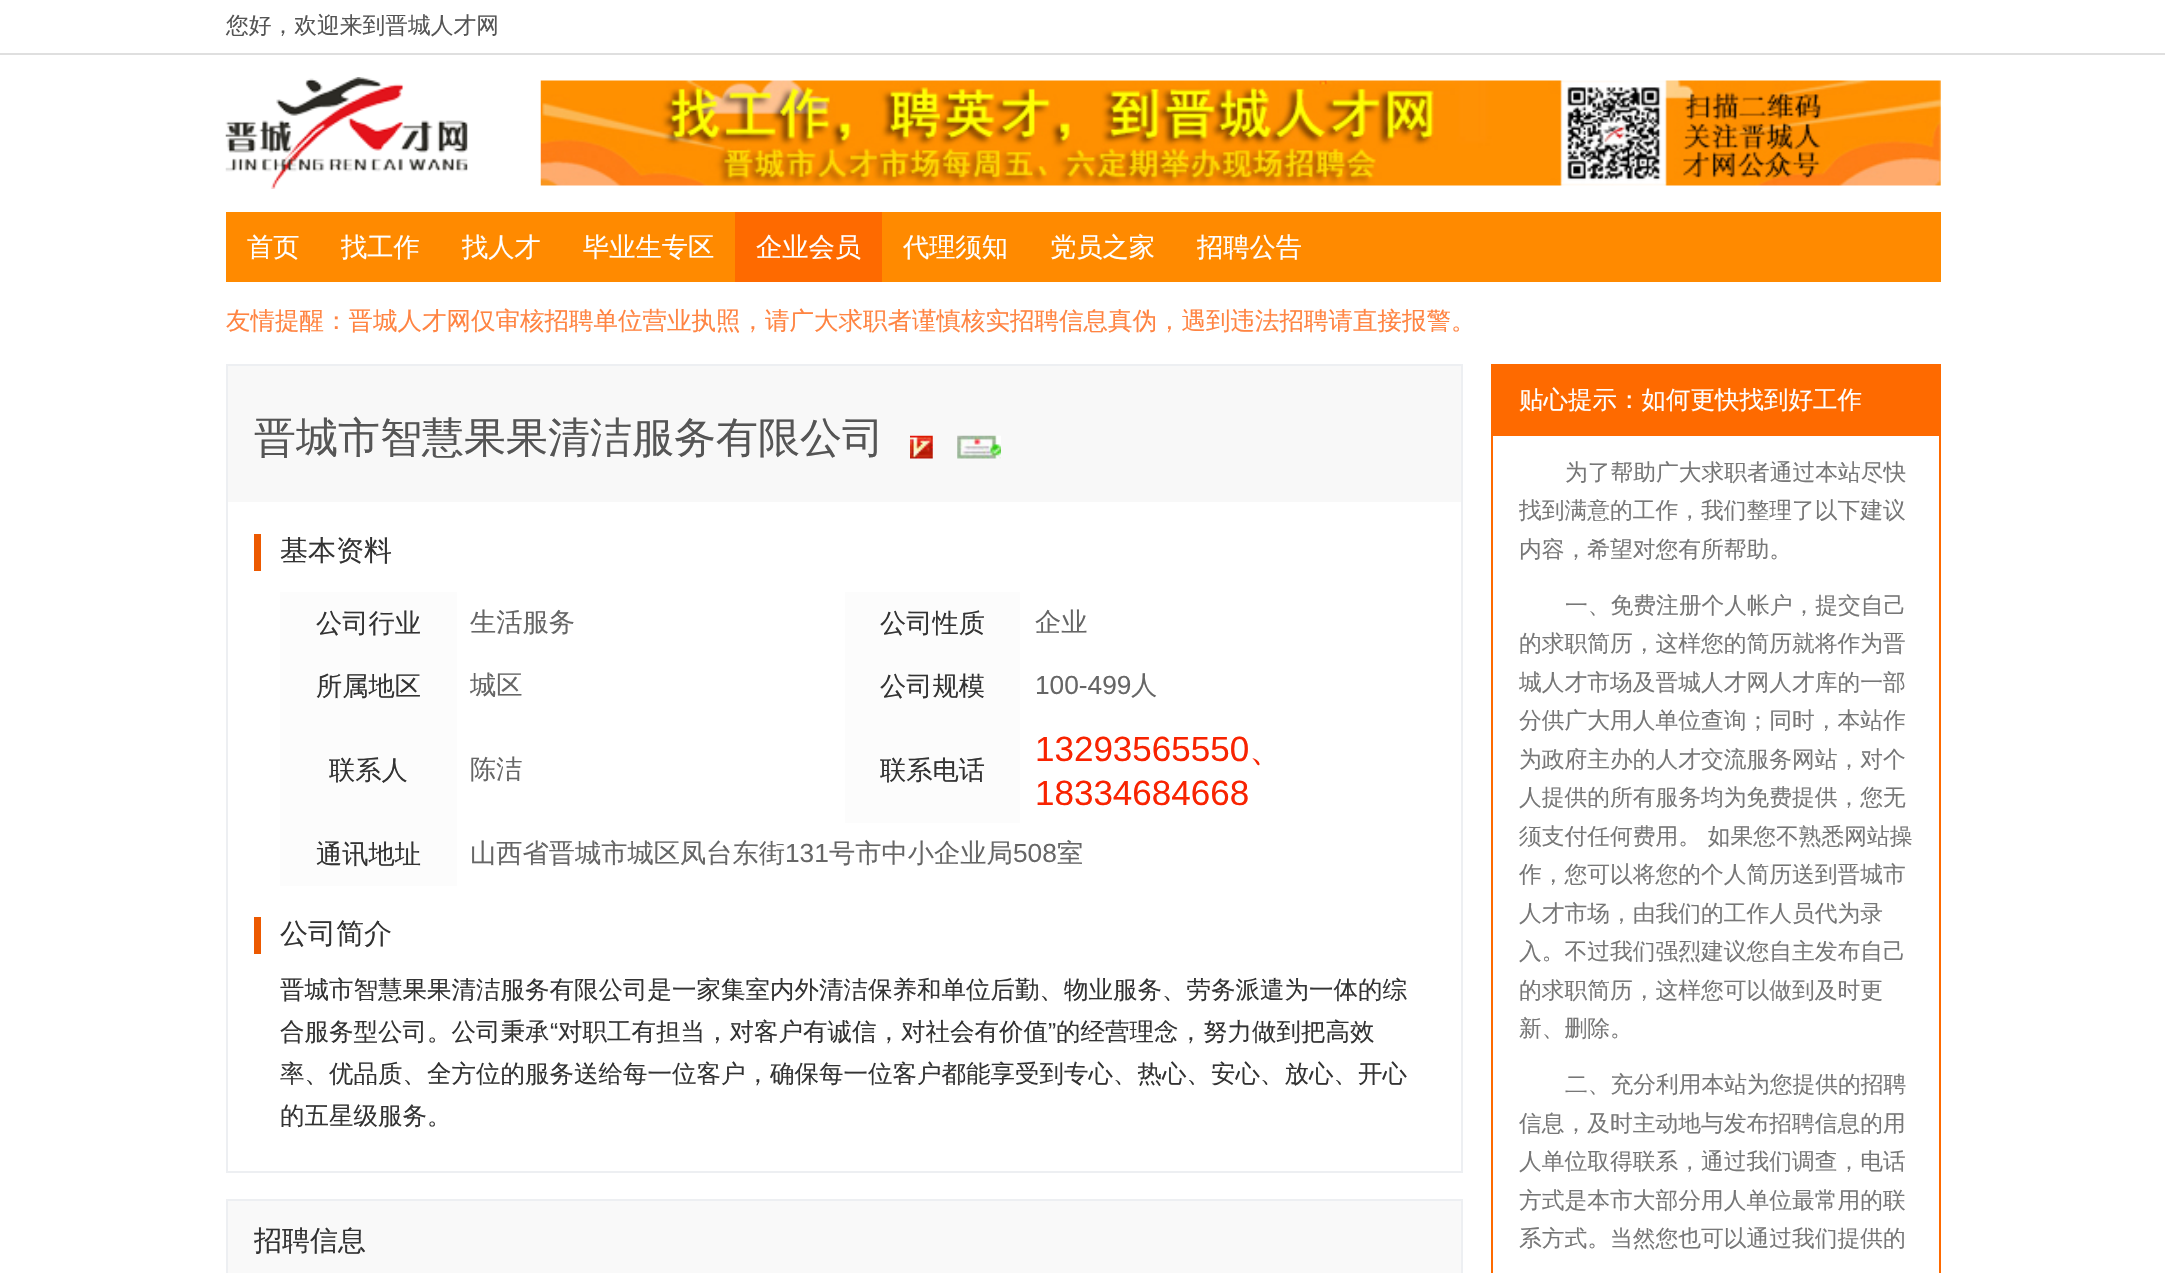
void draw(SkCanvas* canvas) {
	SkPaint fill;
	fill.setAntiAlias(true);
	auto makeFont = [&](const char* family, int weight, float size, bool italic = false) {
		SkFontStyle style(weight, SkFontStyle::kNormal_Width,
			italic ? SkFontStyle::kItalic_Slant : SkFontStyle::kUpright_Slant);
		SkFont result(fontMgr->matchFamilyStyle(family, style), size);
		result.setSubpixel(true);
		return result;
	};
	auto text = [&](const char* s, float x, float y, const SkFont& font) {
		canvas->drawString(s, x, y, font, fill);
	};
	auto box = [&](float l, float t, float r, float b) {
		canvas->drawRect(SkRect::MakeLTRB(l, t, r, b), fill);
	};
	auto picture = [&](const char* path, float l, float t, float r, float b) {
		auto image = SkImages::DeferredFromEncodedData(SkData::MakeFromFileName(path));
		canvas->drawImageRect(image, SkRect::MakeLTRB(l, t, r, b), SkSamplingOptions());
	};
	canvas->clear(0xFFFFFFFF);
	fill.setColor(0xFFDFDFDF);
	box(0, 53, 2165, 55);
	picture("image0.png", 225, 77, 468, 189);
	picture("image1.png", 540, 80, 1941, 186);
	fill.setColor(0xFFFF8A00);
	box(226, 212, 1941, 282);
	fill.setColor(0xFFFE6A00);
	box(735, 212, 882, 282);
	fill.setStyle(SkPaint::kStroke_Style);
	fill.setStrokeWidth(2);
	fill.setColor(0xFFEDEFF2);
	canvas->drawRect(SkRect::MakeLTRB(227, 365, 1462, 1172), fill);
	fill.setStyle(SkPaint::kFill_Style);
	fill.setColor(0xFFF8F8F8);
	box(228, 366, 1461, 502);
	picture("image2.png", 910, 435, 933, 459);
	picture("image3.png", 957, 435, 1001, 459);
	fill.setColor(0xFFEC5900);
	box(254, 534, 261, 571);
	fill.setColor(0xFFFCFCFC);
	box(280, 592, 457, 886);
	box(845, 592, 1020, 823);
	fill.setColor(0xFFEC5900);
	box(254, 917, 261, 954);
	fill.setColor(0xFFFE6A00);
	box(1491, 364, 1941, 369);
	box(1939, 364, 1941, 1273);
	box(1491, 364, 1493, 1273);
	box(1493, 369, 1939, 436);
	fill.setStyle(SkPaint::kStroke_Style);
	fill.setColor(0xFFEDEFF2);
	canvas->drawRect(SkRect::MakeLTRB(227, 1200, 1462, 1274), fill);
	fill.setStyle(SkPaint::kFill_Style);
	fill.setColor(0xFFF9F9F9);
	box(228, 1201, 1461, 1273);
	auto font1 = makeFont("WenQuanYi Zen Hei", 500, 22.75f);
	fill.setColor(0xFF555555);
	text("您好，欢迎来到晋城人才网", 226, 33, font1);
	auto font2 = makeFont("WenQuanYi Zen Hei", 500, 26.25f);
	fill.setColor(0xFFFFFFFF);
	text("首页", 247, 256, font2);
	text("找工作", 341, 256, font2);
	text("找人才", 462, 256, font2);
	text("毕业生专区", 583, 256, font2);
	text("企业会员", 756, 256, font2);
	text("代理须知", 903, 256, font2);
	text("党员之家", 1050, 256, font2);
	text("招聘公告", 1197, 256, font2);
	auto font3 = makeFont("WenQuanYi Zen Hei", 500, 24.5f);
	fill.setColor(0xFFFF8442);
	text("友情提醒：晋城人才网仅审核招聘单位营业执照，请广大求职者谨慎核实招聘信息真伪，遇到违法招聘请直接报警。", 226, 329, font3);
	auto font4 = makeFont("WenQuanYi Zen Hei", 500, 42);
	fill.setColor(0xFF555555);
	text("晋城市智慧果果清洁服务有限公司", 254, 452, font4);
	auto font5 = makeFont("WenQuanYi Zen Hei", 500, 28);
	fill.setColor(0xFF333333);
	text("基本资料", 280, 560, font5);
	text("公司行业", 316, 632, font2);
	fill.setColor(0xFF666666);
	text("生活服务", 470, 631, font2);
	fill.setColor(0xFF333333);
	text("公司性质", 880, 632, font2);
	fill.setColor(0xFF666666);
	text("企业", 1035, 631, font2);
	fill.setColor(0xFF333333);
	text("所属地区", 316, 695, font2);
	fill.setColor(0xFF666666);
	text("城区", 470, 694, font2);
	fill.setColor(0xFF333333);
	text("公司规模", 880, 695, font2);
	auto font6 = makeFont("Liberation Sans", 400, 26.25f);
	fill.setColor(0xFF666666);
	text("100-499", 1035, 694, font6);
	text("人", 1131, 694, font2);
	fill.setColor(0xFF333333);
	text("联系人", 329, 779, font2);
	fill.setColor(0xFF666666);
	text("陈洁", 470, 778, font2);
	fill.setColor(0xFF333333);
	text("联系电话", 880, 779, font2);
	auto font7 = makeFont("Liberation Sans", 400, 35);
	fill.setColor(0xFFF82301);
	text("13293565550", 1035, 761, font7);
	auto font8 = makeFont("WenQuanYi Zen Hei", 500, 35);
	text("、", 1249, 761, font8);
	text("18334684668", 1035, 805, font7);
	fill.setColor(0xFF333333);
	text("通讯地址", 316, 863, font2);
	fill.setColor(0xFF666666);
	text("山西省晋城市城区凤台东街", 470, 862, font2);
	text("131", 785, 862, font6);
	text("号市中小企业局", 829, 862, font2);
	text("508", 1013, 862, font6);
	text("室", 1057, 862, font2);
	fill.setColor(0xFF333333);
	text("公司简介", 280, 943, font5);
	text("晋城市智慧果果清洁服务有限公司是一家集室内外清洁保养和单位后勤、物业服务、劳务派遣为一体的综", 280, 998, font3);
	text("合服务型公司。公司秉承", 280, 1040, font3);
	auto font9 = makeFont("Liberation Sans", 400, 24.5f);
	text("“", 550, 1040, font9);
	text("对职工有担当，对客户有诚信，对社会有价值", 558, 1040, font3);
	text("”", 1048, 1040, font9);
	text("的经营理念，努力做到把高效", 1056, 1040, font3);
	text("率、优品质、全方位的服务送给每一位客户，确保每一位客户都能享受到专心、热心、安心、放心、开心", 280, 1082, font3);
	text("的五星级服务。", 280, 1124, font3);
	fill.setColor(0xFFFFFFFF);
	text("贴心提示：如何更快找到好工作", 1519, 408, font3);
	fill.setColor(0xFF777777);
	text("为了帮助广大求职者通过本站尽快", 1565, 480, font1);
	text("找到满意的工作，我们整理了以下建议", 1519, 518, font1);
	text("内容，希望对您有所帮助。", 1519, 557, font1);
	text("一、免费注册个人帐户，提交自己", 1565, 613, font1);
	text("的求职简历，这样您的简历就将作为晋", 1519, 651, font1);
	text("城人才市场及晋城人才网人才库的一部", 1519, 690, font1);
	text("分供广大用人单位查询；同时，本站作", 1519, 728, font1);
	text("为政府主办的人才交流服务网站，对个", 1519, 767, font1);
	text("人提供的所有服务均为免费提供，您无", 1519, 805, font1);
	text("须支付任何费用。 如果您不熟悉网站操", 1519, 844, font1);
	text("作，您可以将您的个人简历送到晋城市", 1519, 882, font1);
	text("人才市场，由我们的工作人员代为录", 1519, 921, font1);
	text("入。不过我们强烈建议您自主发布自己", 1519, 959, font1);
	text("的求职简历，这样您可以做到及时更", 1519, 998, font1);
	text("新、删除。", 1519, 1036, font1);
	text("二、充分利用本站为您提供的招聘", 1565, 1092, font1);
	text("信息，及时主动地与发布招聘信息的用", 1519, 1131, font1);
	text("人单位取得联系，通过我们调查，电话", 1519, 1169, font1);
	text("方式是本市大部分用人单位最常用的联", 1519, 1208, font1);
	text("系方式。当然您也可以通过我们提供的", 1519, 1246, font1);
	fill.setColor(0xFF333333);
	text("招聘信息", 254, 1250, font5);
}
